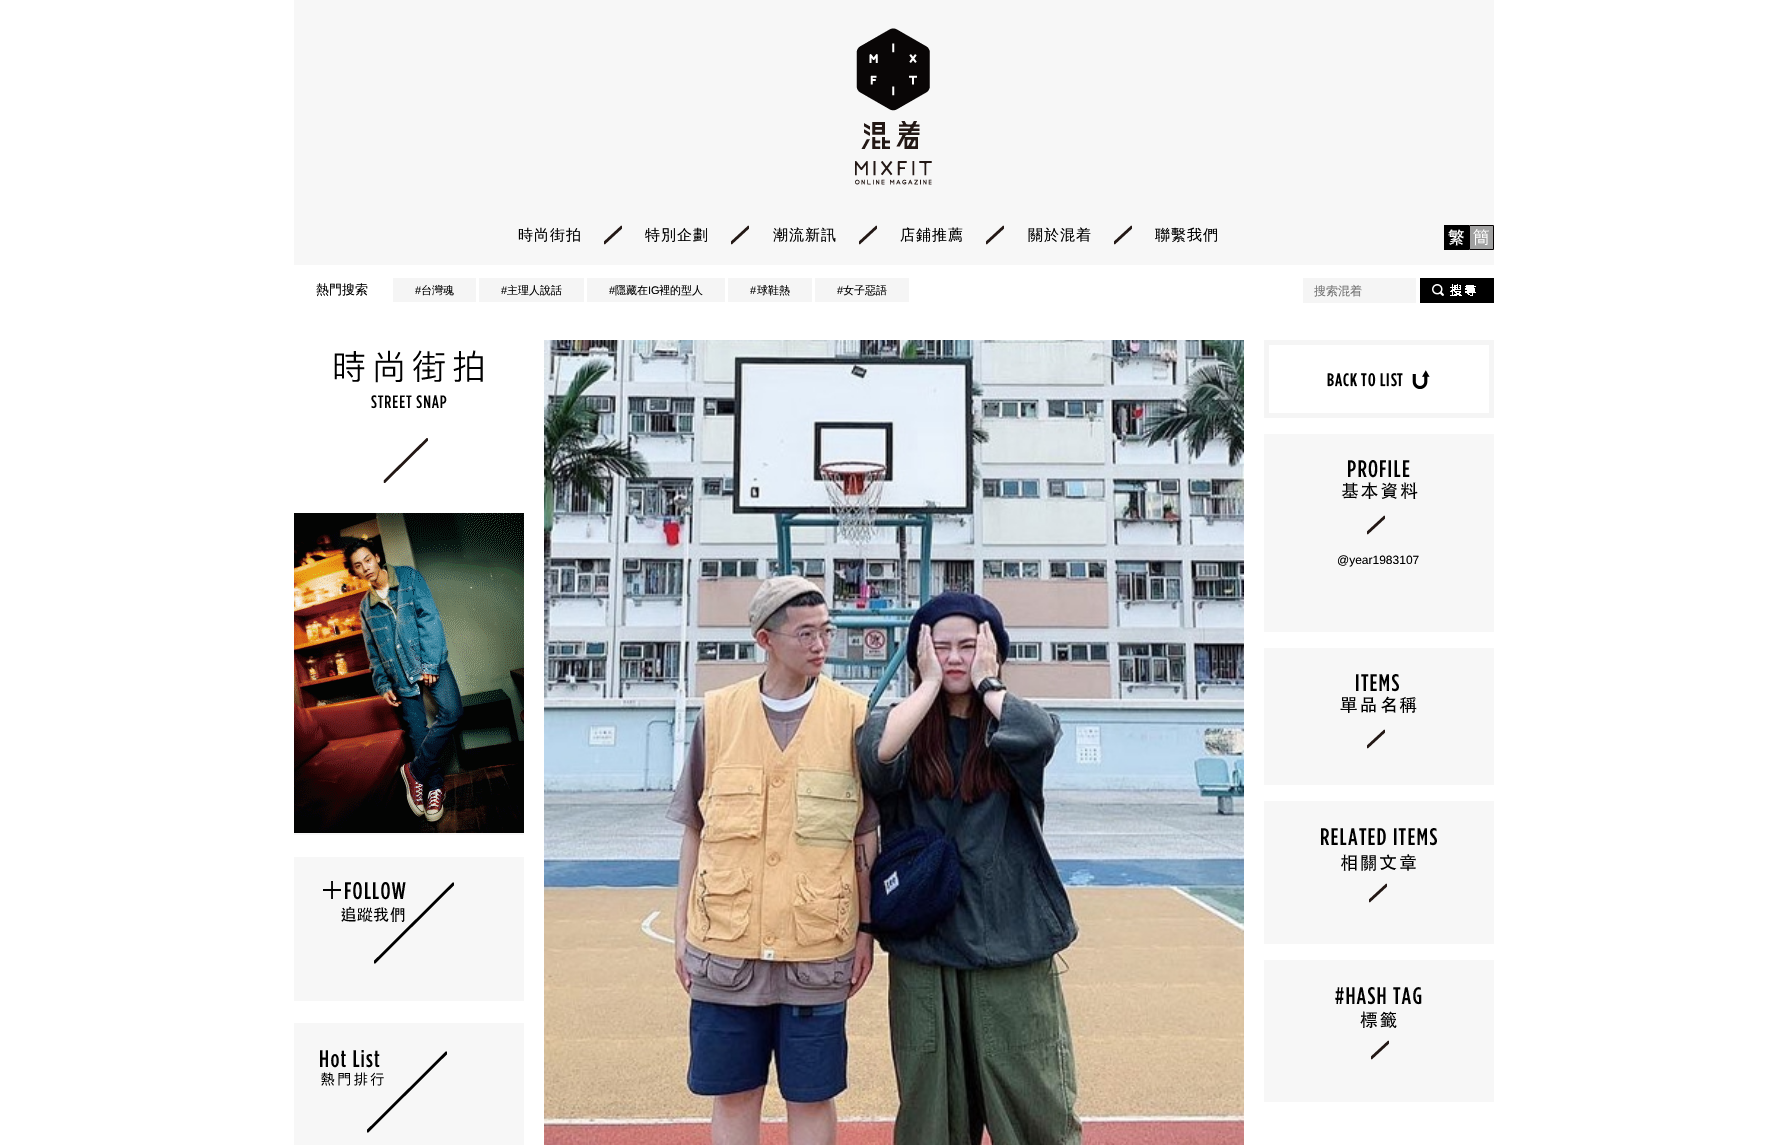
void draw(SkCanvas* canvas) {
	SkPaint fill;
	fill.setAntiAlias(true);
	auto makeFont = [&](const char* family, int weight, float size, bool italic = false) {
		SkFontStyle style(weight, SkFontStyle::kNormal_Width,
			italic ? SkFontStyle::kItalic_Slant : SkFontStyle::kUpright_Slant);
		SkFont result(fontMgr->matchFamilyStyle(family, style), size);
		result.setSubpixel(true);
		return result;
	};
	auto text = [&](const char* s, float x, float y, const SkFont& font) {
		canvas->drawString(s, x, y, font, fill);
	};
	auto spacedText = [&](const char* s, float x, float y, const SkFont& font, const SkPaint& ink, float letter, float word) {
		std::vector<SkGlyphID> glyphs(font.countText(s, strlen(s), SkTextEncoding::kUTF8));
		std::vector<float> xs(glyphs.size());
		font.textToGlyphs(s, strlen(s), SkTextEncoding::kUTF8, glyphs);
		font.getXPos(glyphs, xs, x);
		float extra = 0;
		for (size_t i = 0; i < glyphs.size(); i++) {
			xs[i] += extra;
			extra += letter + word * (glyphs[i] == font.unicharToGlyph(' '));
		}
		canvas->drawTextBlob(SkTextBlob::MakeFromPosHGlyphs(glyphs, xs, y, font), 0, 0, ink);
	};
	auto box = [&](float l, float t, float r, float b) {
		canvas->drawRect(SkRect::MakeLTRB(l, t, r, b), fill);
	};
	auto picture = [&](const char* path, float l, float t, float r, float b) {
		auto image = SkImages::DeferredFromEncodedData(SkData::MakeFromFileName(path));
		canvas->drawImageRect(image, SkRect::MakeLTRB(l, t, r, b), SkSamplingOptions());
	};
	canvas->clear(0xFFFFFFFF);
	fill.setColor(0xFFF7F7F7);
	box(294, 0, 1494, 265);
	picture("image0.png", 855, 28, 932, 185);
	picture("image1.png", 604, 225, 622, 245);
	picture("image1.png", 731, 225, 749, 245);
	picture("image1.png", 859, 225, 877, 245);
	picture("image1.png", 986, 225, 1004, 245);
	picture("image1.png", 1114, 225, 1132, 245);
	picture("image2.png", 1444, 225, 1469, 250);
	picture("image3.png", 1469, 225, 1494, 250);
	fill.setColor(0xFFF5F5F5);
	box(393, 278, 476, 302);
	box(479, 278, 584, 302);
	box(587, 278, 725, 302);
	box(728, 278, 812, 302);
	box(815, 278, 909, 302);
	box(1303, 278, 1416, 303);
	fill.setColor(0xFF000000);
	box(1420, 278, 1494, 303);
	picture("image4.png", 1432, 284, 1476, 296);
	picture("image5.png", 334, 350, 483, 483);
	fill.setColor(0xFFF7F7F7);
	box(294, 833, 524, 835);
	picture("image6.png", 294, 513, 524, 833);
	box(294, 857, 524, 1001);
	picture("image7.png", 323, 881, 454, 964);
	box(294, 1023, 524, 1145);
	picture("image8.png", 320, 1050, 447, 1133);
	picture("image9.png", 544, 340, 1244, 1145);
	picture("image10.png", 1327, 370, 1430, 389);
	fill.setStyle(SkPaint::kStroke_Style);
	fill.setStrokeWidth(5);
	fill.setColor(0xFFF5F5F5);
	canvas->drawRect(SkRect::MakeLTRB(1266.5f, 342.5f, 1491.5f, 415.5f), fill);
	fill.setStyle(SkPaint::kFill_Style);
	fill.setColor(0xFFF7F7F7);
	box(1264, 434, 1494, 632);
	picture("image11.png", 1341, 460, 1418, 535);
	box(1264, 648, 1494, 785);
	picture("image12.png", 1340, 674, 1417, 749);
	box(1264, 801, 1494, 944);
	picture("image13.png", 1321, 828, 1437, 903);
	box(1264, 960, 1494, 1102);
	picture("image14.png", 1335, 987, 1422, 1060);
	auto font1 = makeFont("WenQuanYi Zen Hei", 500, 15);
	fill.setColor(0xFF000000);
	spacedText("時尚街拍", 518, 240, font1, fill, 1, 0);
	spacedText("特別企劃", 645, 240, font1, fill, 1, 0);
	spacedText("潮流新訊", 773, 240, font1, fill, 1, 0);
	spacedText("店鋪推薦", 900, 240, font1, fill, 1, 0);
	spacedText("關於混着", 1028, 240, font1, fill, 1, 0);
	spacedText("聯繫我們", 1155, 240, font1, fill, 1, 0);
	auto font2 = makeFont("WenQuanYi Zen Hei", 500, 13);
	text("熱門搜索", 316, 294, font2);
	auto font3 = makeFont("Liberation Sans", 400, 11);
	text("#", 415, 294, font3);
	auto font4 = makeFont("WenQuanYi Zen Hei", 500, 11);
	text("台灣魂", 421, 294, font4);
	text("#", 501, 294, font3);
	text("主理人說話", 507, 294, font4);
	text("#", 609, 294, font3);
	text("隱藏在", 615, 294, font4);
	text("IG", 648, 294, font3);
	text("裡的型人", 659, 294, font4);
	text("#", 750, 294, font3);
	text("球鞋熱", 757, 294, font4);
	text("#", 837, 294, font3);
	text("女子惡語", 843, 294, font4);
	auto font5 = makeFont("WenQuanYi Zen Hei", 500, 12);
	fill.setColor(0xFF757575);
	text("搜索混着", 1314, 295, font5);
	auto font6 = makeFont("Liberation Sans", 400, 12);
	fill.setColor(0xFF000000);
	text("@year1983107", 1337, 564, font6);
}
